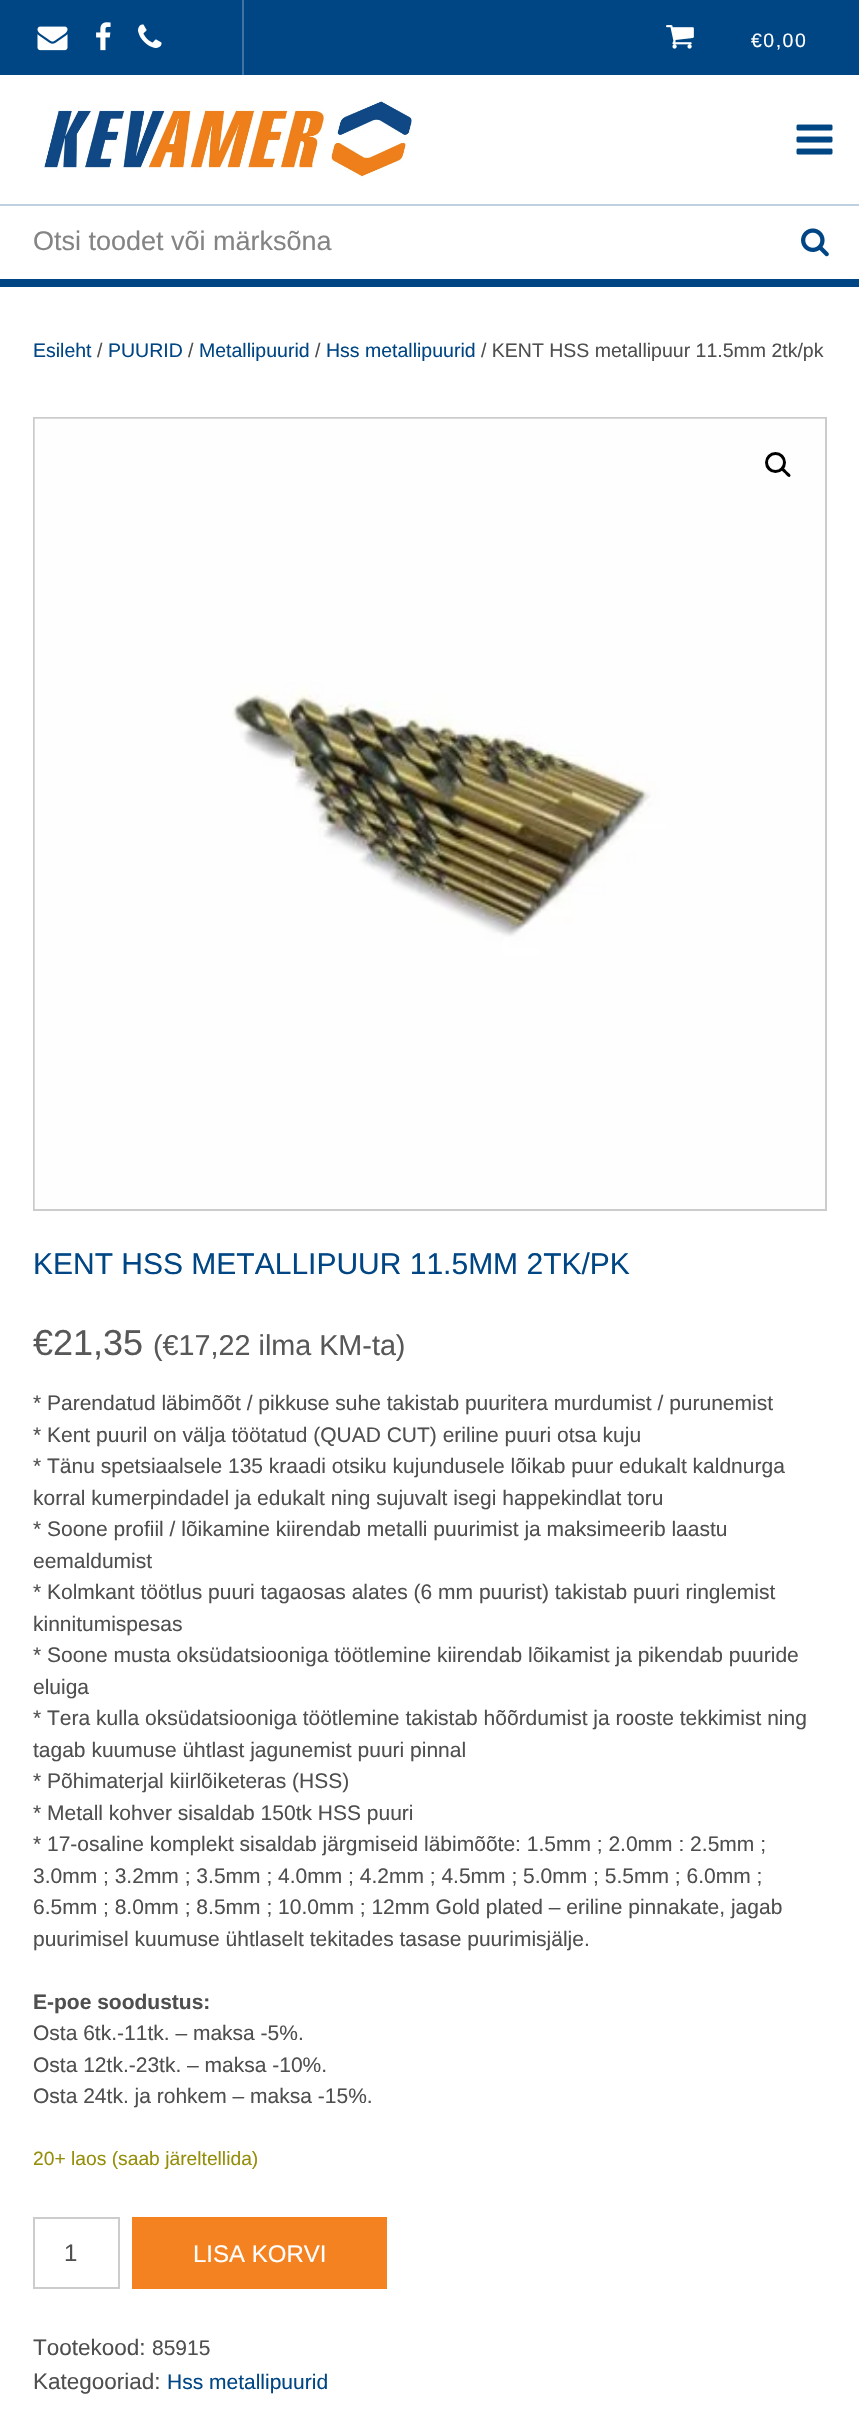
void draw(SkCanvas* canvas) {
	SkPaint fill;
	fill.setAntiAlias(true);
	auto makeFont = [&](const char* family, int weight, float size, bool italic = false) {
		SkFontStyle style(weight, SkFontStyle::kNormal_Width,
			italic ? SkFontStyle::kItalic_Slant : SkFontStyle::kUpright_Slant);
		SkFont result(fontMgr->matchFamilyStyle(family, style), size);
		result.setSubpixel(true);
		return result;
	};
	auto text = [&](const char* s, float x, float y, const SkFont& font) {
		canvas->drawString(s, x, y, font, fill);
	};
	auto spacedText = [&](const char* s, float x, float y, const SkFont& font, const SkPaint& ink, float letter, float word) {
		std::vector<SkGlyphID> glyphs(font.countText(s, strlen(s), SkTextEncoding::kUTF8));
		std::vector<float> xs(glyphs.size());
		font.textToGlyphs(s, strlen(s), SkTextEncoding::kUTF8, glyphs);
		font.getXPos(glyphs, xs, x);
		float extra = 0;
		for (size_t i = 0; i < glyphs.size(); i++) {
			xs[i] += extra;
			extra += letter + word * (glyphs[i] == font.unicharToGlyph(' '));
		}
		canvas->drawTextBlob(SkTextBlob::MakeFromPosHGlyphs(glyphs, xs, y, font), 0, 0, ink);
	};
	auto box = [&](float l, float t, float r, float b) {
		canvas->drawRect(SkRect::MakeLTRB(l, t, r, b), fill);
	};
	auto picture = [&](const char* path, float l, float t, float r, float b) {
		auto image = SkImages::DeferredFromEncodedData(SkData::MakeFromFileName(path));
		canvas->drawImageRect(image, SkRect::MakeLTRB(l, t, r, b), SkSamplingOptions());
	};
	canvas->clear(0xFFFFFFFF);
	fill.setColor(0xFF004684);
	box(0, 279, 859, 287);
	box(0, 0, 859, 75);
	fill.setColor(0xFF4074A3);
	box(242, 0, 244, 75);
	picture("image0.png", 37, 26, 68, 51);
	picture("image1.png", 96, 22, 111, 51);
	picture("image2.png", 138, 24, 162, 48);
	picture("image3.png", 666, 25, 694, 49);
	picture("image4.png", 44, 101, 412, 177);
	picture("image5.png", 796, 124, 833, 155);
	fill.setColor(0xFFBFD1E0);
	box(0, 204, 859, 206);
	picture("image6.png", 801, 228, 829, 257);
	fill.setStyle(SkPaint::kStroke_Style);
	fill.setStrokeWidth(2);
	fill.setColor(0xFFCCCCCC);
	canvas->drawRect(SkRect::MakeLTRB(34, 418, 826, 1210), fill);
	picture("image7.png", 34, 418, 825, 1209);
	fill.setStrokeWidth(3);
	fill.setColor(0xFF000000);
	canvas->drawCircle(775.5f, 462.5f, 9, fill);
	fill.setStyle(SkPaint::kFill_Style);
	canvas->drawPath(SkPathBuilder().moveTo(782, 468.5f).cubicTo(783.5f, 466.5f, 786, 470.5f, 787, 471.5f).cubicTo(788, 472.5f, 792, 475, 790, 476.5f).cubicTo(788.5f, 478.5f, 786, 474.5f, 785, 473.5f).cubicTo(784, 472.5f, 780, 470, 782, 468.5f).close().detach(), fill);
	fill.setStyle(SkPaint::kStroke_Style);
	fill.setStrokeWidth(2);
	fill.setColor(0xFFCCCCCC);
	canvas->drawRect(SkRect::MakeLTRB(34, 2218, 119, 2288), fill);
	fill.setStyle(SkPaint::kFill_Style);
	fill.setColor(0xFFF58220);
	box(132, 2217, 387, 2289);
	auto font1 = makeFont("Arimo", 400, 19.5f);
	fill.setColor(0xFFFFFFFF);
	spacedText("€0,00", 751, 47, font1, fill, 1.5f, 0);
	auto font2 = makeFont("Arimo", 400, 27);
	fill.setColor(0xFF848484);
	text("Otsi toodet või märksõna", 33, 250, font2);
	fill.setColor(0xFF004684);
	text("Esileht", 33, 357, font1);
	fill.setColor(0xFF4F4F4F);
	text("/", 97, 357, font1);
	fill.setColor(0xFF004684);
	text("PUURID", 108, 357, font1);
	fill.setColor(0xFF4F4F4F);
	text("/", 188, 357, font1);
	fill.setColor(0xFF004684);
	text("Metallipuurid", 199, 357, font1);
	fill.setColor(0xFF4F4F4F);
	text("/", 315, 357, font1);
	fill.setColor(0xFF004684);
	text("Hss metallipuurid", 326, 357, font1);
	fill.setColor(0xFF4F4F4F);
	text("/ KENT HSS metallipuur 11.5mm 2tk/pk", 481, 357, font1);
	auto font3 = makeFont("Arimo", 400, 30);
	fill.setColor(0xFF004684);
	text("KENT HSS METALLIPUUR 11.5MM 2TK/PK", 33, 1274, font3);
	auto font4 = makeFont("Arimo", 400, 36);
	fill.setColor(0xFF58585A);
	text("€21,35", 33, 1355, font4);
	auto font5 = makeFont("Arimo", 400, 28.75f);
	text("(€17,22 ilma KM-ta)", 153, 1355, font5);
	auto font6 = makeFont("Arimo", 400, 21);
	fill.setColor(0xFF4F4F4F);
	text("* Parendatud läbimõõt / pikkuse suhe takistab puuritera murdumist / purunemist", 33, 1410, font6);
	text("* Kent puuril on välja töötatud (QUAD CUT) eriline puuri otsa kuju", 33, 1442, font6);
	text("* Tänu spetsiaalsele 135 kraadi otsiku kujundusele lõikab puur edukalt kaldnurga", 33, 1473, font6);
	text("korral kumerpindadel ja edukalt ning sujuvalt isegi happekindlat toru", 33, 1505, font6);
	text("* Soone profiil / lõikamine kiirendab metalli puurimist ja maksimeerib laastu", 33, 1536, font6);
	text("eemaldumist", 33, 1568, font6);
	text("* Kolmkant töötlus puuri tagaosas alates (6 mm puurist) takistab puuri ringlemist", 33, 1599, font6);
	text("kinnitumispesas", 33, 1631, font6);
	text("* Soone musta oksüdatsiooniga töötlemine kiirendab lõikamist ja pikendab puuride", 33, 1662, font6);
	text("eluiga", 33, 1694, font6);
	text("* Tera kulla oksüdatsiooniga töötlemine takistab hõõrdumist ja rooste tekkimist ning", 33, 1725, font6);
	text("tagab kuumuse ühtlast jagunemist puuri pinnal", 33, 1757, font6);
	text("* Põhimaterjal kiirlõiketeras (HSS)", 33, 1788, font6);
	text("* Metall kohver sisaldab 150tk HSS puuri", 33, 1820, font6);
	text("* 17-osaline komplekt sisaldab järgmiseid läbimõõte: 1.5mm ; 2.0mm : 2.5mm ;", 33, 1851, font6);
	text("3.0mm ; 3.2mm ; 3.5mm ; 4.0mm ; 4.2mm ; 4.5mm ; 5.0mm ; 5.5mm ; 6.0mm ;", 33, 1883, font6);
	text("6.5mm ; 8.0mm ; 8.5mm ; 10.0mm ; 12mm Gold plated – eriline pinnakate, jagab", 33, 1914, font6);
	text("puurimisel kuumuse ühtlaselt tekitades tasase puurimisjälje.", 33, 1946, font6);
	auto font7 = makeFont("Arimo", 700, 21);
	text("E-poe soodustus:", 33, 2009, font7);
	text("Osta 6tk.-11tk. – maksa -5%.", 33, 2040, font6);
	text("Osta 12tk.-23tk. – maksa -10%.", 33, 2072, font6);
	text("Osta 24tk. ja rohkem – maksa -15%.", 33, 2103, font6);
	auto font8 = makeFont("Arimo", 400, 19.25f);
	fill.setColor(0xFF958E09);
	text("20+ laos (saab järeltellida)", 33, 2165, font8);
	auto font9 = makeFont("Arimo", 400, 24);
	fill.setColor(0xFF4F4F4F);
	text("1", 64, 2261, font9);
	fill.setColor(0xFFFFFFFF);
	text("LISA KORVI", 193, 2262, font9);
	auto font10 = makeFont("Arimo", 400, 22.5f);
	fill.setColor(0xFF4F4F4F);
	text("Tootekood:", 33, 2355, font10);
	text("85915", 152, 2355, font6);
	text("Kategooriad:", 33, 2389, font10);
	fill.setColor(0xFF004684);
	text("Hss metallipuurid", 167, 2389, font6);
}
